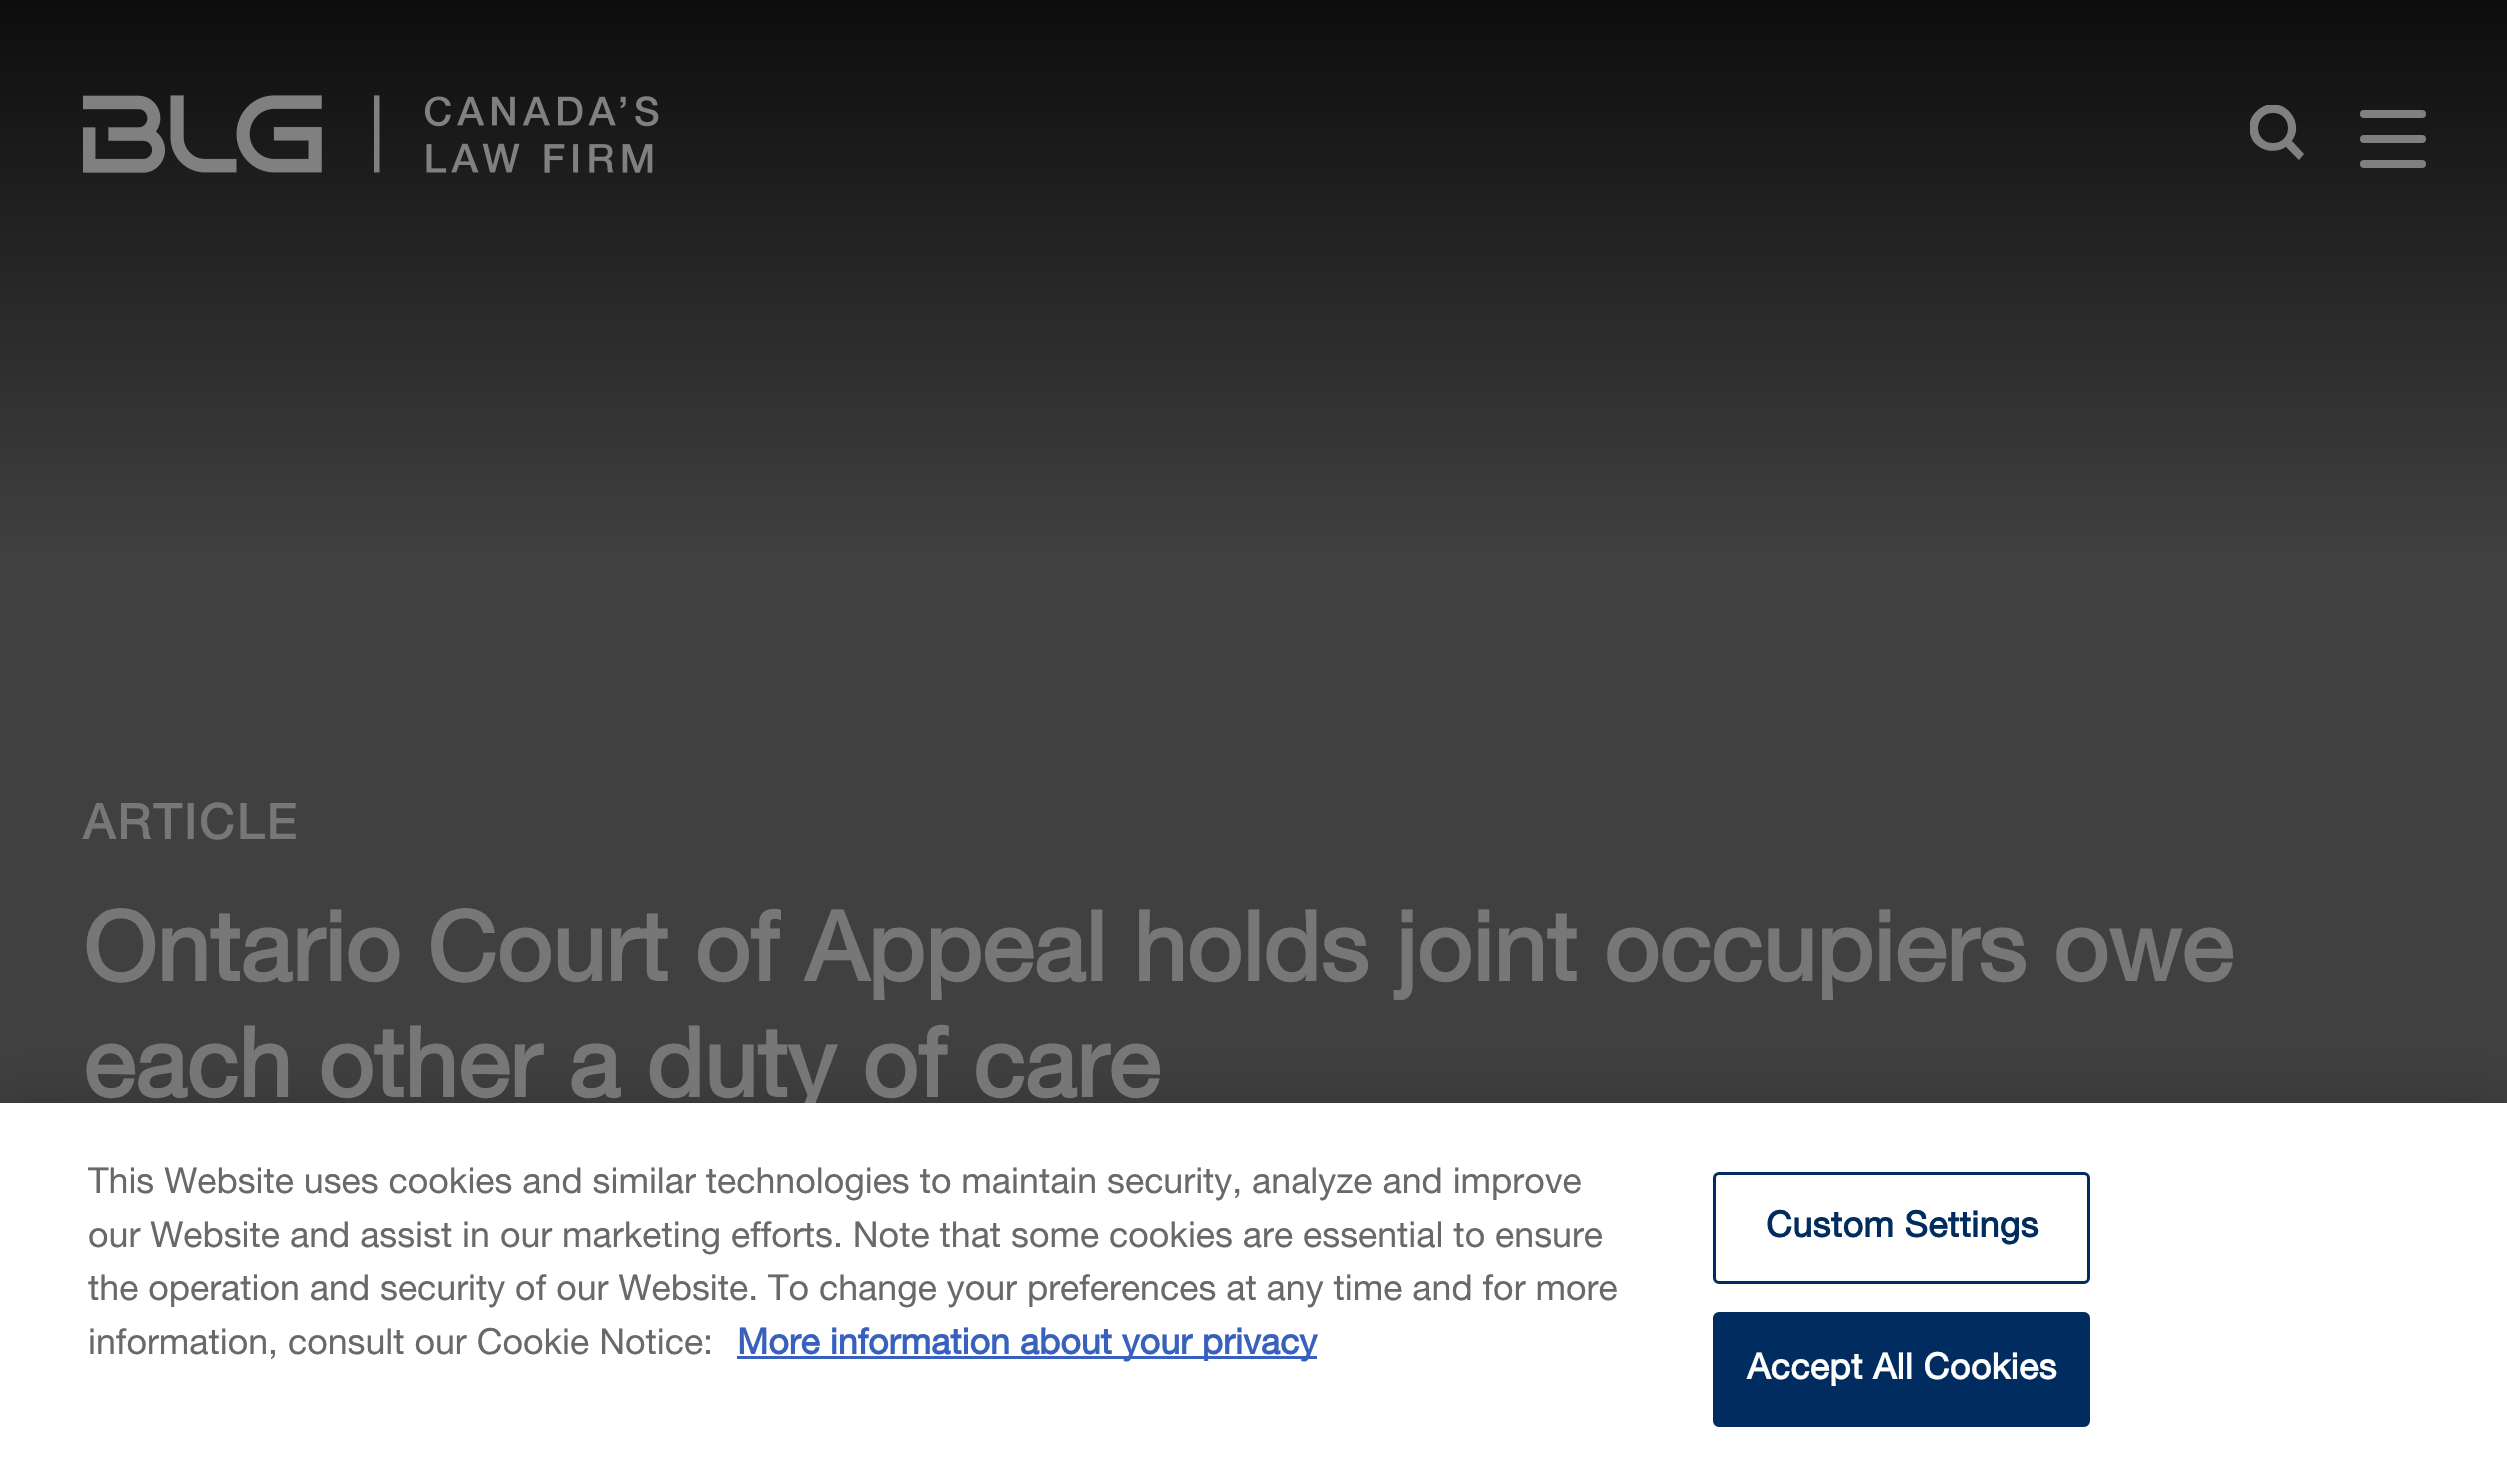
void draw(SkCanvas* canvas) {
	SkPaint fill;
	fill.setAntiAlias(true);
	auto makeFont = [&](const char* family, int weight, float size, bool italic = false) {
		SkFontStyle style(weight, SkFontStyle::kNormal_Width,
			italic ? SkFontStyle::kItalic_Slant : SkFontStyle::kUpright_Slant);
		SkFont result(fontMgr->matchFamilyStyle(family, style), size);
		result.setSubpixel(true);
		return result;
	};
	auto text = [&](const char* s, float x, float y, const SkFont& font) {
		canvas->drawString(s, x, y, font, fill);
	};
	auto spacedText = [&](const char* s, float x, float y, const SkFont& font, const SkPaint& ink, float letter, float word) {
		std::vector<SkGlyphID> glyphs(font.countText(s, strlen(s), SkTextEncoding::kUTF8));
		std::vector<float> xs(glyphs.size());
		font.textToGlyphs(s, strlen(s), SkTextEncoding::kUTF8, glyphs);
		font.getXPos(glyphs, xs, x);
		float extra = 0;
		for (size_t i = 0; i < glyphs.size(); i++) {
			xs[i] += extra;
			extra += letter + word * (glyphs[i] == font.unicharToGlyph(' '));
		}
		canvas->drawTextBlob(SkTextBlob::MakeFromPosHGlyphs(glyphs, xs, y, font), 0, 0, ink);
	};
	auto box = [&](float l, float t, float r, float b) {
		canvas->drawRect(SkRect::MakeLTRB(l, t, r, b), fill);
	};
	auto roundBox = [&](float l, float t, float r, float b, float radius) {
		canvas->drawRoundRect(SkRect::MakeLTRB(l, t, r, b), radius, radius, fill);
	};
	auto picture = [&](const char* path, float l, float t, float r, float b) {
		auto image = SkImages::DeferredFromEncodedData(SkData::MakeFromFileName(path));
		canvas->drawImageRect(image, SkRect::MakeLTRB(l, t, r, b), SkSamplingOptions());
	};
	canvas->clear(0xFFFFFFFF);
	{
		const SkColor colors[] = {0xFF0D0D0D, 0xFF404040, 0xFF404040, 0xFF1A1A1A};
		const float stops[] = {0, 0.3f, 0.6f, 1};
		const SkPoint ends[] = {{1254, 0}, {1254, 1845}};
		fill.setShader(SkGradientShader::MakeLinear(ends, colors, stops, 4, SkTileMode::kClamp));
		fill.setAlpha(255);
	}
	box(0, 0, 2507, 1103);
	picture("image0.png", 83, 95, 659, 173);
	canvas->save();
	canvas->clipRect(SkRect::MakeLTRB(2250, 105, 2305, 160));
	fill.setShader(nullptr);
	fill.setColor(0xFF808080);
	canvas->drawPath(SkPathBuilder().moveTo(2273, 143).cubicTo(2253, 143, 2253, 113, 2273, 113).cubicTo(2293, 113, 2293, 143, 2273, 143).close().moveTo(2292, 141).lineTo(2291, 142).cubicTo(2306, 124, 2286, 97, 2264, 106).cubicTo(2258, 109, 2254, 113, 2251, 119).cubicTo(2248, 126, 2249, 134, 2253, 141).cubicTo(2261, 152, 2277, 154, 2287, 146).lineTo(2286, 147).lineTo(2299, 160).lineTo(2304, 154).close().detach(), fill);
	canvas->restore();
	roundBox(2360, 135, 2426, 143, 4);
	roundBox(2360, 110, 2426, 118, 4);
	roundBox(2360, 160, 2426, 168, 4);
	fill.setColor(0x33000000);
	fill.setMaskFilter(SkMaskFilter::MakeBlur(kNormal_SkBlurStyle, 25));
	canvas->drawRect(SkRect::MakeLTRB(0, 1103, 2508, 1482), fill);
	fill.setMaskFilter(nullptr);
	auto font1 = makeFont("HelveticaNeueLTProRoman", 700, 48.5f);
	fill.setColor(0xFF777777);
	spacedText("ARTICLE", 83, 839, font1, fill, 2.75f, 0);
	auto font2 = makeFont("HelveticaNeueLTProRoman", 700, 96.25f);
	text("Ontario Court of Appeal holds joint occupiers owe", 83, 981, font2);
	text("each other a duty of care", 83, 1097, font2);
	fill.setColor(0xFFFFFFFF);
	box(0, 1103, 2507, 1481);
	auto font3 = makeFont("HelveticaNeueLTProRoman", 400, 35.75f);
	fill.setColor(0xFF696969);
	text("This Website uses cookies and similar technologies to maintain security, analyze and improve", 88, 1193, font3);
	text("our Website and assist in our marketing efforts. Note that some cookies are essential to ensure", 88, 1247, font3);
	text("the operation and security of our Website. To change your preferences at any time and for more", 88, 1300, font3);
	text("information, consult our Cookie Notice:", 88, 1354, font3);
	fill.setColor(0xFF3860BE);
	box(737, 1356, 1317, 1359);
	auto font4 = makeFont("HelveticaNeueLTProRoman", 700, 35.75f);
	text("More information about your privacy", 737, 1354, font4);
	fill.setStyle(SkPaint::kStroke_Style);
	fill.setStrokeWidth(3);
	fill.setColor(0xFF002C5F);
	canvas->drawRoundRect(SkRect::MakeLTRB(1714.5f, 1173.5f, 2088.5f, 1282.5f), 4.5f, 4.5f, fill);
	fill.setStyle(SkPaint::kFill_Style);
	spacedText("Custom Settings", 1766, 1237, font4, fill, 0.4f, 0);
	canvas->drawRoundRect(SkRect::MakeLTRB(1714.5f, 1313.5f, 2088.5f, 1425.5f), 4.5f, 4.5f, fill);
	fill.setStyle(SkPaint::kStroke_Style);
	canvas->drawRoundRect(SkRect::MakeLTRB(1714.5f, 1313.5f, 2088.5f, 1425.5f), 4.5f, 4.5f, fill);
	fill.setStyle(SkPaint::kFill_Style);
	fill.setColor(0xFFFFFFFF);
	spacedText("Accept All Cookies", 1747, 1379, font4, fill, 0.4f, 0);
}
